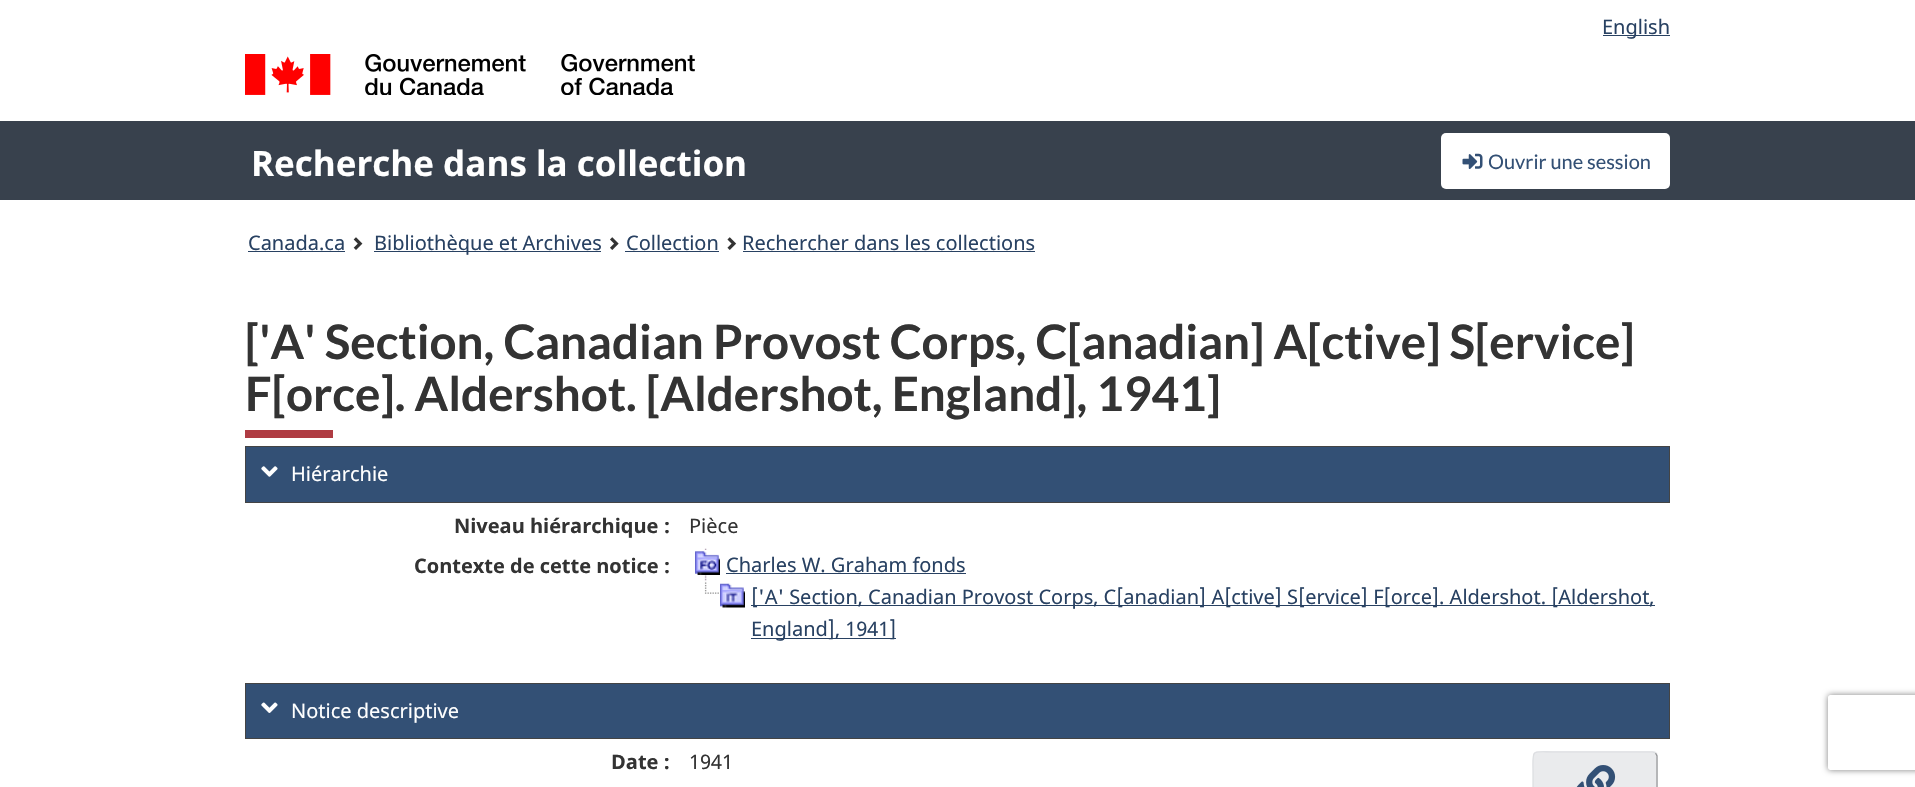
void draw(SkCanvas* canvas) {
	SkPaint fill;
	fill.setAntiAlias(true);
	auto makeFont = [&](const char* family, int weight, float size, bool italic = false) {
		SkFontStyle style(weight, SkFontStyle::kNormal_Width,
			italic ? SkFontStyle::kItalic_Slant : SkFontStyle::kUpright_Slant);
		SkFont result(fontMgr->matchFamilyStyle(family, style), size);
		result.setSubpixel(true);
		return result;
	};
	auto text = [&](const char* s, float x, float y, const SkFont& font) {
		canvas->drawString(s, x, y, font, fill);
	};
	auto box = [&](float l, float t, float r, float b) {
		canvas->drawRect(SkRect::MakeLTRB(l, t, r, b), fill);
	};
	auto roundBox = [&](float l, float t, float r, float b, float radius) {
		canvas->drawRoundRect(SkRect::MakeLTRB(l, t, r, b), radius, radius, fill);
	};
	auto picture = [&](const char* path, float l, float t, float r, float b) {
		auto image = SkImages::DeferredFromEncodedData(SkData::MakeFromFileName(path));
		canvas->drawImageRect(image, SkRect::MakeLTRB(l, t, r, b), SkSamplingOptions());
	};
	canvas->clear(0xFFFFFFFF);
	fill.setColor(0xFF284162);
	box(1603, 35, 1670, 36);
	picture("image0.png", 245, 54, 695, 95);
	fill.setColor(0xFF38414D);
	box(0, 121, 1915, 200);
	fill.setColor(0xFFFFFFFF);
	roundBox(1441, 133, 1670, 189, 5);
	picture("image1.png", 1462, 153, 1483, 169);
	fill.setColor(0xFF284162);
	box(248, 251, 345, 252);
	picture("image2.png", 353, 237, 363, 250);
	box(374, 251, 601, 252);
	picture("image3.png", 610, 237, 619, 250);
	box(625, 251, 719, 252);
	picture("image4.png", 727, 237, 737, 250);
	box(743, 251, 1035, 252);
	fill.setColor(0xFFAF3C43);
	box(245, 430, 333, 438);
	fill.setColor(0xFF335075);
	canvas->drawRect(SkRect::MakeLTRB(245.5f, 446.5f, 1669.5f, 502.5f), fill);
	fill.setStyle(SkPaint::kStroke_Style);
	fill.setStrokeWidth(1);
	fill.setColor(0xFF444444);
	canvas->drawRect(SkRect::MakeLTRB(245.5f, 446.5f, 1669.5f, 502.5f), fill);
	picture("image5.png", 261, 466, 278, 477);
	picture("image6.png", 704, 548, 707, 582);
	picture("image7.png", 695, 550, 720, 575);
	fill.setStyle(SkPaint::kFill_Style);
	fill.setColor(0xFF284162);
	box(726, 573, 966, 574);
	fill.setColor(0xBFFFFFFF);
	box(705, 581, 707, 582);
	picture("image8.png", 704, 582, 719, 594);
	picture("image9.png", 720, 583, 745, 608);
	fill.setColor(0xFF284162);
	box(751, 605, 1655, 606);
	box(751, 638, 896, 639);
	fill.setColor(0xFF335075);
	canvas->drawRect(SkRect::MakeLTRB(245.5f, 683.5f, 1669.5f, 738.5f), fill);
	fill.setStyle(SkPaint::kStroke_Style);
	fill.setColor(0xFF444444);
	canvas->drawRect(SkRect::MakeLTRB(245.5f, 683.5f, 1669.5f, 738.5f), fill);
	picture("image10.png", 261, 702, 278, 713);
	fill.setStyle(SkPaint::kFill_Style);
	fill.setColor(0xFFEAEBED);
	roundBox(1533, 751, 1658, 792, 5);
	fill.setStyle(SkPaint::kStroke_Style);
	fill.setStrokeWidth(1.2f);
	fill.setColor(0xFF939496);
	canvas->drawPath(SkPathBuilder().moveTo(1655.5f, 753).lineTo(1657, 756).lineTo(1657, 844).cubicTo(1657, 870, 1660.5f, 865.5f, 1633.5f, 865.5f).lineTo(1537.5f, 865.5f).lineTo(1534.5f, 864.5f).detach(), fill);
	fill.setColor(0xFFDCDEE1);
	canvas->drawPath(SkPathBuilder().moveTo(1534.5f, 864.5f).lineTo(1533, 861).lineTo(1533, 774).cubicTo(1533, 747.5f, 1529.5f, 752, 1556.5f, 752).lineTo(1652.5f, 752).lineTo(1655.5f, 753).detach(), fill);
	picture("image11.png", 1576, 765, 1616, 787);
	canvas->save();
	canvas->clipPath(SkPathBuilder(SkPathFillType::kEvenOdd).moveTo(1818, 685).lineTo(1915, 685).lineTo(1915, 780).lineTo(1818, 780).close().moveTo(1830.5f, 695).lineTo(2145.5f, 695).cubicTo(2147, 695, 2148, 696, 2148, 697.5f).lineTo(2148, 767.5f).cubicTo(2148, 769, 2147, 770, 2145.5f, 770).lineTo(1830.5f, 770).cubicTo(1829, 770, 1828, 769, 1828, 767.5f).lineTo(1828, 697.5f).cubicTo(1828, 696, 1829, 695, 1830.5f, 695).close().detach(), true);
	fill.setStyle(SkPaint::kFill_Style);
	fill.setColor(0xFF808080);
	fill.setMaskFilter(SkMaskFilter::MakeBlur(kNormal_SkBlurStyle, 3));
	canvas->drawRoundRect(SkRect::MakeLTRB(1828, 695, 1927, 770), 2.5f, 2.5f, fill);
	fill.setMaskFilter(nullptr);
	canvas->restore();
	auto font1 = makeFont("Noto Sans", 400, 20);
	fill.setColor(0xFF284162);
	text("English", 1602, 34, font1);
	auto font2 = makeFont("Noto Sans", 700, 35);
	fill.setColor(0xFFFFFFFF);
	text("Recherche dans la collection", 251, 176, font2);
	auto font3 = makeFont("Lato", 400, 20);
	fill.setColor(0xFF335075);
	text("Ouvrir une session", 1488, 169, font3);
	fill.setColor(0xFF284162);
	text("Canada.ca", 248, 250, font1);
	text("Bibliothèque et Archives", 374, 250, font1);
	text("Collection", 626, 250, font1);
	text("Rechercher dans les collections", 742, 250, font1);
	auto font4 = makeFont("Lato", 700, 47.5f);
	fill.setColor(0xFF333333);
	text("['A' Section, Canadian Provost Corps, C[anadian] A[ctive] S[ervice]", 245, 359, font4);
	text("F[orce]. Aldershot. [Aldershot, England], 1941]", 245, 411, font4);
	fill.setColor(0xFFFFFFFF);
	text("Hiérarchie", 291, 481, font1);
	auto font5 = makeFont("Noto Sans", 700, 20);
	fill.setColor(0xFF333333);
	text("Niveau hiérarchique :", 454, 533, font5);
	text("Pièce", 689, 533, font1);
	text("Contexte de cette notice :", 414, 573, font5);
	fill.setColor(0xFF284162);
	text("Charles W. Graham fonds", 726, 572, font1);
	text("['A' Section, Canadian Provost Corps, C[anadian] A[ctive] S[ervice] F[orce]. Aldershot. [Aldershot,", 751, 604, font1);
	text("England], 1941]", 751, 636, font1);
	fill.setColor(0xFFFFFFFF);
	text("Notice descriptive", 291, 718, font1);
	fill.setColor(0xFF333333);
	text("Date :", 611, 769, font5);
	text("1941", 689, 769, font1);
}
